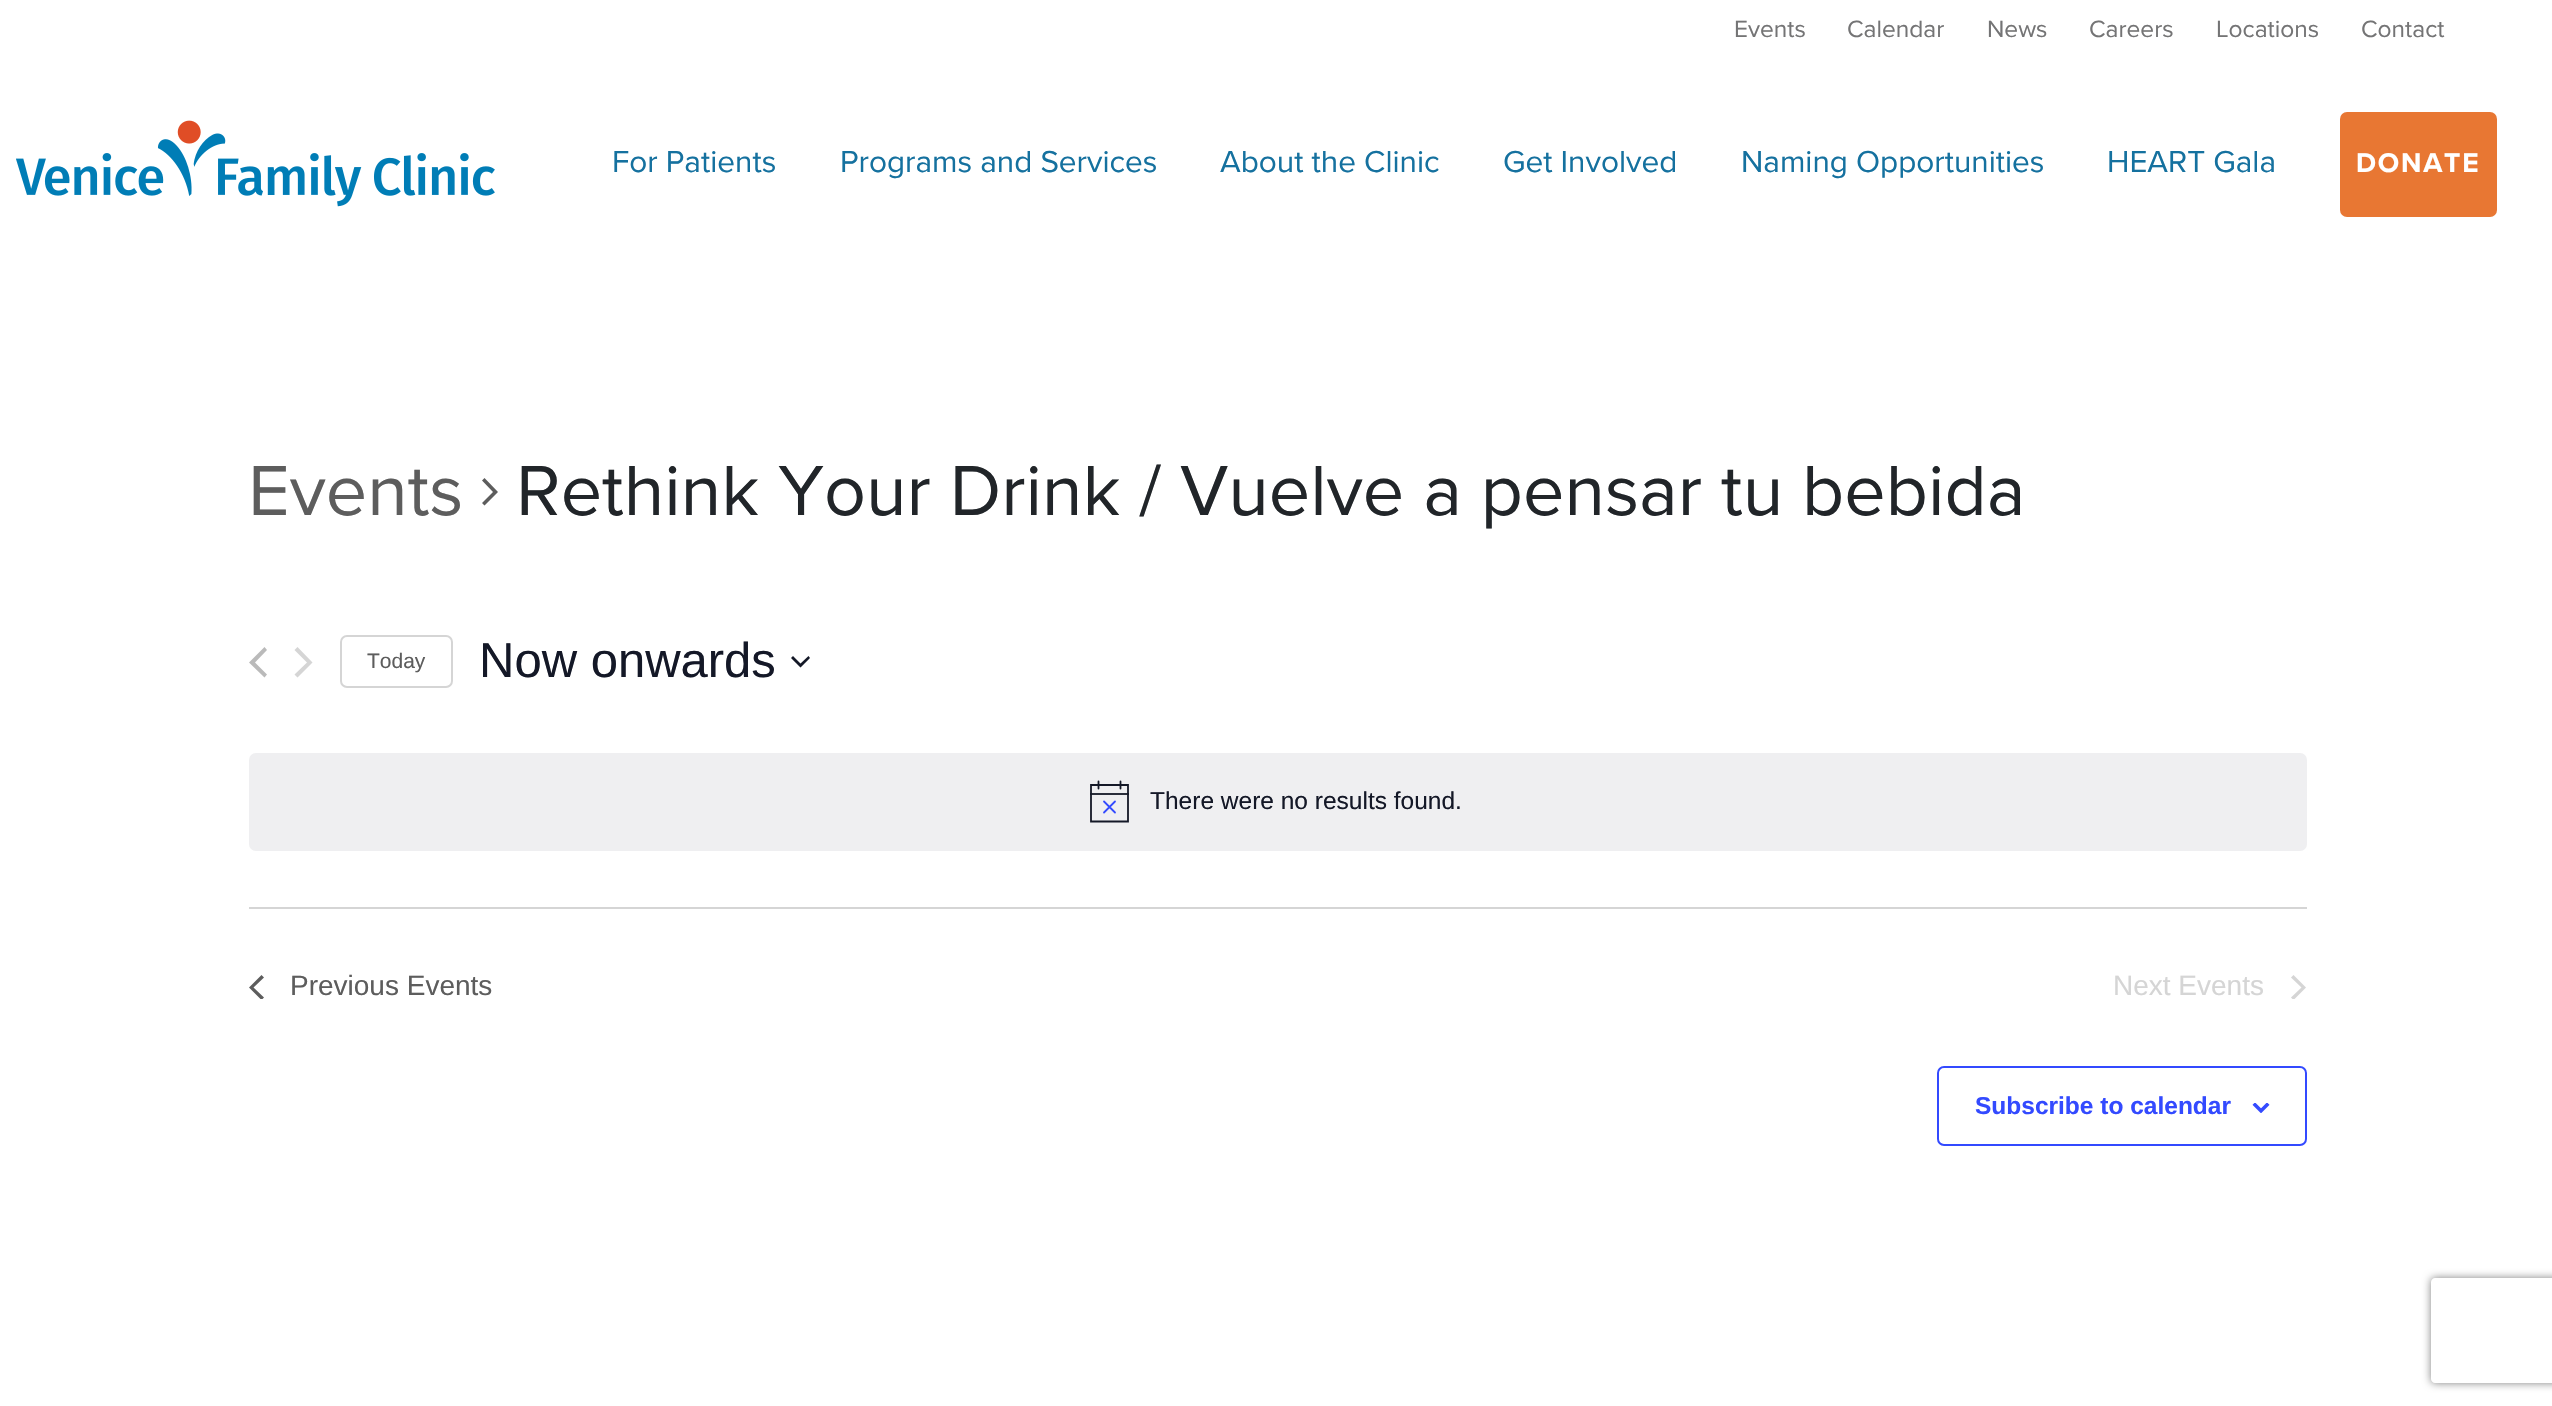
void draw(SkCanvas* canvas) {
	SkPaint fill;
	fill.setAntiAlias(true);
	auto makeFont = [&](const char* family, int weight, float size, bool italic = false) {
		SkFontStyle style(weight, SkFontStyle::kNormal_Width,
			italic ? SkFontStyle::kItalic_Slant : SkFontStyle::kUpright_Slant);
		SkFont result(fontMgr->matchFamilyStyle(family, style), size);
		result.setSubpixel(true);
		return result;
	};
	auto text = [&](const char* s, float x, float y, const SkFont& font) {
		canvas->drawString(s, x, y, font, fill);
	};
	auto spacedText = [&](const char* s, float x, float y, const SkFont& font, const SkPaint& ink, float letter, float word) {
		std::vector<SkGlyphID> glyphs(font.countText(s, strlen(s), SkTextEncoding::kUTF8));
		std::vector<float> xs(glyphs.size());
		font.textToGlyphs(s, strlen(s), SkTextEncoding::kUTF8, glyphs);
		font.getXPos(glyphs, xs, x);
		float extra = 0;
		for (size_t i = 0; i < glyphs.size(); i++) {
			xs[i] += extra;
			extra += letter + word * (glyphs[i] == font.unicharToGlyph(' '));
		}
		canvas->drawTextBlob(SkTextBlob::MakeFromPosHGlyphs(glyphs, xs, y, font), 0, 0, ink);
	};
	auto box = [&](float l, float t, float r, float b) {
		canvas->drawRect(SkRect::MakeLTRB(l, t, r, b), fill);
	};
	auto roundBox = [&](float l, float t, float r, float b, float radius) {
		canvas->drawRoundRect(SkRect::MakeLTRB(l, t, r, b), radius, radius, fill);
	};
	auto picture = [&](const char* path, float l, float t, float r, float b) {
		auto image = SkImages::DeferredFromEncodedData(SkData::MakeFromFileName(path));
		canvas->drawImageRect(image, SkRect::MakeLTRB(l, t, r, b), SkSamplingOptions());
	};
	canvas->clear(0xFFFFFFFF);
	picture("image0.png", 16, 120, 495, 207);
	fill.setColor(0xFFE87733);
	roundBox(2340, 112, 2497, 217, 7);
	fill.setColor(0xFF5D5D5D);
	canvas->drawPath(SkPathBuilder().moveTo(482, 480.5f).lineTo(484.5f, 478).lineTo(498, 492).lineTo(484.5f, 505.5f).lineTo(482, 503).lineTo(493, 492).close().detach(), fill);
	fill.setColor(0xFFBABABA);
	canvas->drawPath(SkPathBuilder().moveTo(267, 674.5f).lineTo(264.5f, 677.5f).lineTo(249, 662.5f).lineTo(264.5f, 647).lineTo(267, 650).lineTo(255, 662.5f).close().detach(), fill);
	fill.setColor(0xFFD5D5D5);
	canvas->drawPath(SkPathBuilder().moveTo(294.5f, 650).lineTo(297.5f, 647).lineTo(312.5f, 662.5f).lineTo(297.5f, 677.5f).lineTo(294.5f, 674.5f).lineTo(307, 662.5f).close().detach(), fill);
	fill.setStyle(SkPaint::kStroke_Style);
	fill.setStrokeWidth(2);
	canvas->drawRoundRect(SkRect::MakeLTRB(341, 636, 452, 687), 6, 6, fill);
	fill.setStyle(SkPaint::kFill_Style);
	fill.setColor(0xFF141827);
	canvas->drawPath(SkPathBuilder(SkPathFillType::kEvenOdd).moveTo(793, 656).lineTo(800.5f, 663.5f).lineTo(808.5f, 656).lineTo(810, 658).lineTo(800.5f, 667.5f).lineTo(791, 658).close().detach(), fill);
	fill.setColor(0xFFEFEFF1);
	roundBox(249, 753, 2307, 851, 7);
	fill.setStyle(SkPaint::kStroke_Style);
	fill.setStrokeWidth(1.8f);
	fill.setColor(0xFF141827);
	canvas->drawPath(SkPathBuilder().moveTo(1091, 785).lineTo(1128, 785).lineTo(1128, 821.5f).lineTo(1091, 821.5f).close().detach(), fill);
	fill.setStrokeCap(SkPaint::kRound_Cap);
	fill.setColor(0xFF334AFF);
	canvas->drawPath(SkPathBuilder().moveTo(1104, 801.5f).lineTo(1115, 812.5f).moveTo(1115, 801.5f).lineTo(1104, 812.5f).detach(), fill);
	fill.setColor(0xFF141827);
	canvas->drawPath(SkPathBuilder().moveTo(1098.5f, 781.5f).lineTo(1098.5f, 788.5f).moveTo(1120.5f, 781.5f).lineTo(1120.5f, 788.5f).detach(), fill);
	fill.setStyle(SkPaint::kFill_Style);
	fill.setColor(0xE6141827);
	box(1090, 793, 1129, 795);
	fill.setColor(0xFFD5D5D5);
	box(249, 907, 2307, 909);
	canvas->save();
	canvas->clipRect(SkRect::MakeLTRB(249, 975, 264, 999));
	fill.setColor(0xFF5D5D5D);
	canvas->drawPath(SkPathBuilder().moveTo(264, 997.5f).lineTo(261.5f, 1000).lineTo(249, 987.5f).lineTo(261.5f, 975).lineTo(264, 977.5f).lineTo(253.5f, 987.5f).close().detach(), fill);
	canvas->restore();
	canvas->save();
	canvas->clipRect(SkRect::MakeLTRB(2291, 975, 2307, 999));
	fill.setColor(0xFFD5D5D5);
	canvas->drawPath(SkPathBuilder().moveTo(2291, 977.5f).lineTo(2293.5f, 975).lineTo(2306, 987.5f).lineTo(2293.5f, 1000).lineTo(2291, 997.5f).lineTo(2301.5f, 987.5f).close().detach(), fill);
	canvas->restore();
	fill.setStyle(SkPaint::kStroke_Style);
	fill.setStrokeWidth(2);
	fill.setStrokeCap(SkPaint::kButt_Cap);
	fill.setColor(0xFF334AFF);
	canvas->drawRoundRect(SkRect::MakeLTRB(1938, 1067, 2306, 1145), 6, 6, fill);
	picture("image1.png", 2252, 1103, 2270, 1113);
	canvas->save();
	canvas->clipPath(SkPathBuilder(SkPathFillType::kEvenOdd).moveTo(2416, 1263).lineTo(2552, 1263).lineTo(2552, 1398).lineTo(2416, 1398).close().moveTo(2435, 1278).lineTo(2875, 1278).cubicTo(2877, 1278, 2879, 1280, 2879, 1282).lineTo(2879, 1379).cubicTo(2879, 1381, 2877, 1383, 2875, 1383).lineTo(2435, 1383).cubicTo(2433, 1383, 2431, 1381, 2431, 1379).lineTo(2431, 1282).cubicTo(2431, 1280, 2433, 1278, 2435, 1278).close().detach(), true);
	fill.setStyle(SkPaint::kFill_Style);
	fill.setColor(0xFF808080);
	fill.setMaskFilter(SkMaskFilter::MakeBlur(kNormal_SkBlurStyle, 4.5f));
	canvas->drawRoundRect(SkRect::MakeLTRB(2431, 1278, 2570, 1383), 4, 4, fill);
	fill.setMaskFilter(nullptr);
	canvas->restore();
	auto font1 = makeFont("Proxima Nova", 400, 24.5f);
	fill.setColor(0xFF747475);
	text("Events", 1734, 37, font1);
	text("Calendar", 1847, 37, font1);
	text("News", 1987, 37, font1);
	text("Careers", 2089, 37, font1);
	text("Locations", 2216, 37, font1);
	text("Contact", 2361, 37, font1);
	auto font2 = makeFont("Proxima Nova", 400, 31.5f);
	fill.setColor(0xFF15719F);
	text("For Patients", 612, 172, font2);
	text("Programs and Services", 840, 172, font2);
	text("About the Clinic", 1220, 172, font2);
	text("Get Involved", 1503, 172, font2);
	text("Naming Opportunities", 1741, 172, font2);
	text("HEART Gala", 2107, 172, font2);
	auto font3 = makeFont("Proxima Nova", 700, 28);
	fill.setColor(0xFFFFFFFF);
	spacedText("DONATE", 2356, 172, font3, fill, 1.75f, 0);
	auto font4 = makeFont("Proxima Nova", 400, 73.5f);
	fill.setColor(0xFF5D5D5D);
	text("Events", 248, 515, font4);
	fill.setColor(0xFF212529);
	text("Rethink Your Drink / Vuelve a pensar tu bebida", 516, 515, font4);
	auto font5 = makeFont("Liberation Sans", 400, 21);
	fill.setColor(0xFF5D5D5D);
	text("Today", 367, 668, font5);
	auto font6 = makeFont("Liberation Sans", 400, 49);
	fill.setColor(0xFF141827);
	text("Now onwards", 479, 677, font6);
	auto font7 = makeFont("Liberation Sans", 400, 24.5f);
	text("There were no results found.", 1150, 809, font7);
	auto font8 = makeFont("Liberation Sans", 400, 28);
	fill.setColor(0xFF5D5D5D);
	text("Previous Events", 290, 995, font8);
	fill.setColor(0xFFD5D5D5);
	text("Next Events", 2113, 995, font8);
	auto font9 = makeFont("Liberation Sans", 700, 24.5f);
	fill.setColor(0xFF334AFF);
	text("Subscribe to calendar", 1975, 1114, font9);
}
